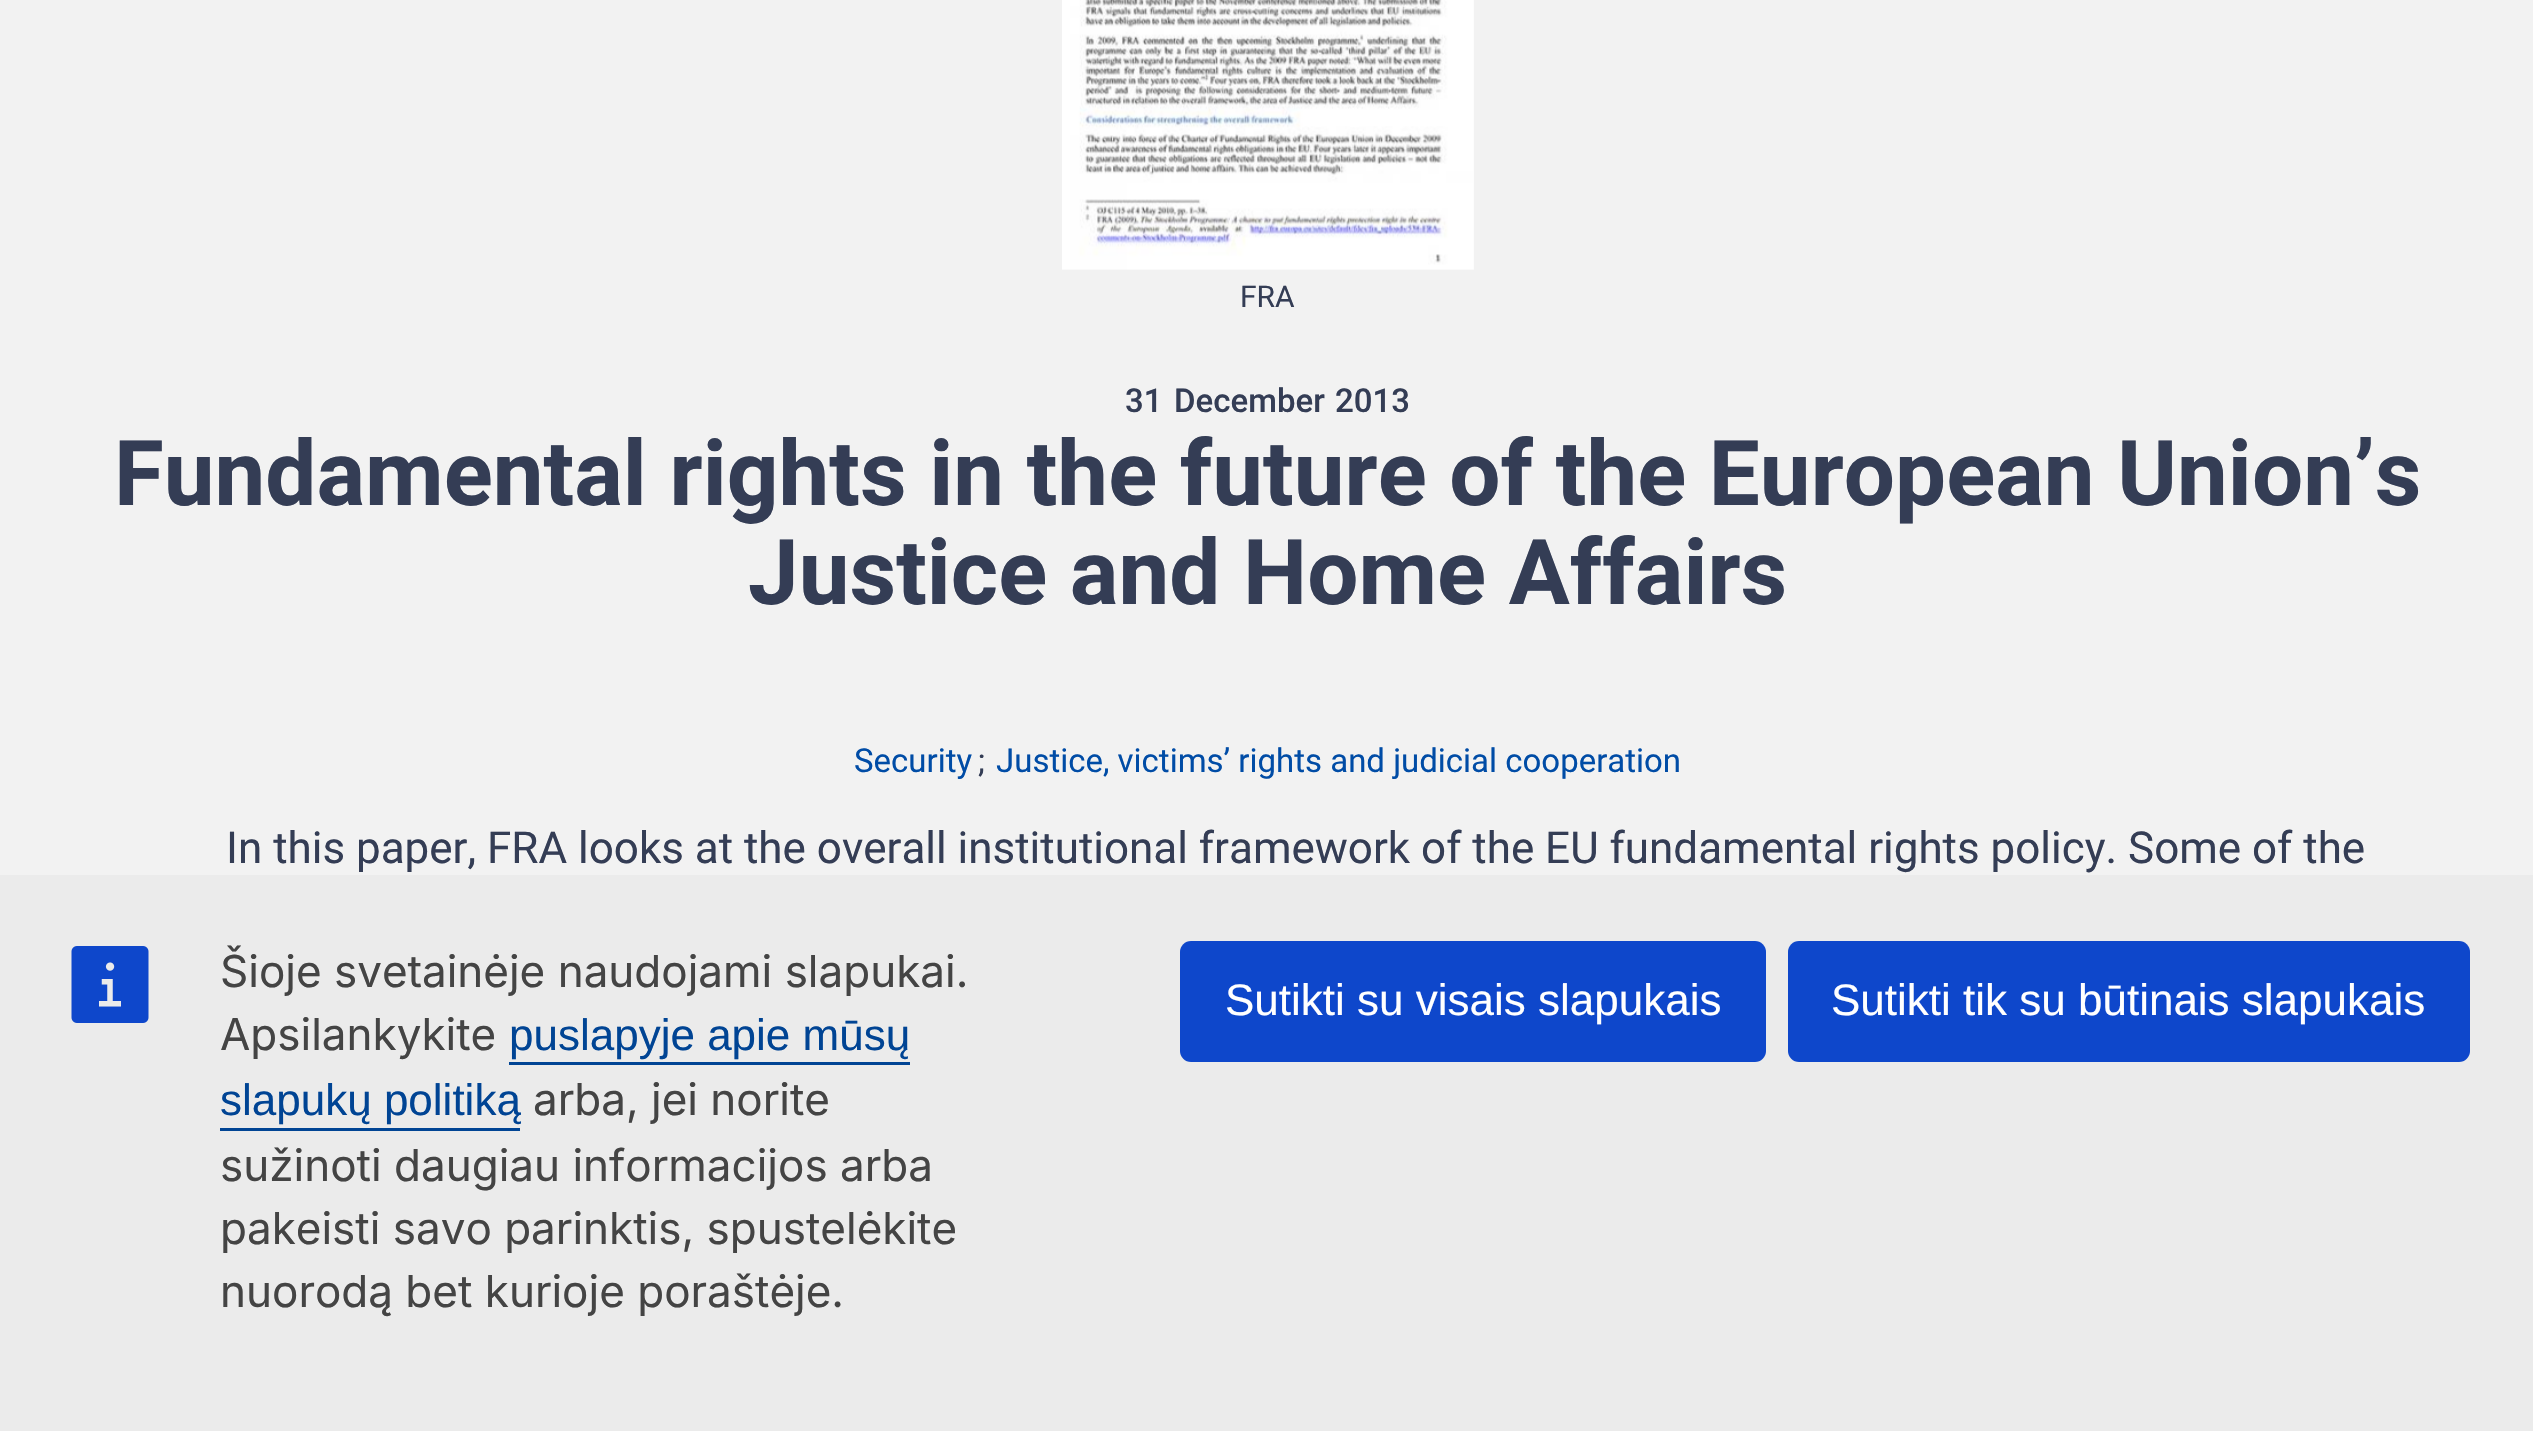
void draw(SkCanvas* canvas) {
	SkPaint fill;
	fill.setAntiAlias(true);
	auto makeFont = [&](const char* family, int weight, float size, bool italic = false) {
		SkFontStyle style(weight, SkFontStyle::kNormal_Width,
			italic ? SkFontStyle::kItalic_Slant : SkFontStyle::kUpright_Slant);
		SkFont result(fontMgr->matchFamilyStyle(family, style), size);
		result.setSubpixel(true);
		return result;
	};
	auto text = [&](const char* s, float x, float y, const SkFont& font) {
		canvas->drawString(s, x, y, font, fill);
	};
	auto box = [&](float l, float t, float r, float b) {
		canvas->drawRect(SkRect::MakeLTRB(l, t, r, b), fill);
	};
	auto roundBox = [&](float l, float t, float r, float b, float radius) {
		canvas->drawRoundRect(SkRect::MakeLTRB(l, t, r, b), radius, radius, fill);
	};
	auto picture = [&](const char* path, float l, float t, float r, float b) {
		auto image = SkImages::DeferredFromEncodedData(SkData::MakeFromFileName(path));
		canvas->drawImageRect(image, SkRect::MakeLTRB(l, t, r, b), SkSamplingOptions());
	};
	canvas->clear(0xFFF2F2F2);
	picture("image0.png", 1062, 0, 1474, 270);
	fill.setColor(0xFFEBEBEB);
	box(0, 875, 2533, 1431);
	picture("image1.png", 71, 946, 149, 1023);
	fill.setColor(0xFF004494);
	box(509, 1062, 910, 1065);
	box(220, 1128, 520, 1131);
	fill.setColor(0xFF0E47CB);
	roundBox(1180, 941, 1766, 1062, 11);
	roundBox(1788, 941, 2470, 1062, 11);
	auto font1 = makeFont("Roboto", 400, 30);
	fill.setColor(0xFF343D55);
	text("FRA", 1240, 307, font1);
	auto font2 = makeFont("Roboto", 500, 33);
	text("31", 1125, 412, font2);
	text("December", 1174, 412, font2);
	text("2013", 1335, 412, font2);
	auto font3 = makeFont("Roboto", 700, 90.75f);
	text("Fundamental rights in the future of the European Union’s", 114, 505, font3);
	text("Justice and Home Affairs", 748, 604, font3);
	auto font4 = makeFont("Roboto", 400, 33);
	fill.setColor(0xFF004CA6);
	text("Security", 854, 772, font4);
	fill.setColor(0xFF343D55);
	text(";", 978, 772, font4);
	fill.setColor(0xFF004CA6);
	text("Justice, victims’ rights and judicial cooperation", 996, 772, font4);
	auto font5 = makeFont("Roboto", 400, 44);
	fill.setColor(0xFF343D55);
	text("In this paper, FRA looks at the overall institutional framework of the EU fundamental rights policy. Some of the", 226, 863, font5);
	auto font6 = makeFont("Inter", 400, 44);
	fill.setColor(0xFF444444);
	text("Šioje svetainėje naudojami slapukai.", 220, 987, font6);
	text("Apsilankykite", 220, 1050, font6);
	auto font7 = makeFont("Liberation Sans", 400, 44);
	fill.setColor(0xFF004494);
	text("puslapyje apie mūsų", 509, 1050, font7);
	text("slapukų politiką", 220, 1115, font7);
	fill.setColor(0xFF444444);
	text("arba, jei norite", 533, 1115, font6);
	text("sužinoti daugiau informacijos arba", 220, 1181, font6);
	text("pakeisti savo parinktis, spustelėkite", 220, 1244, font6);
	text("nuorodą bet kurioje poraštėje.", 220, 1307, font6);
	fill.setColor(0xFFFFFFFF);
	text("Sutikti su visais slapukais", 1225, 1015, font7);
	text("Sutikti tik su būtinais slapukais", 1831, 1015, font7);
}
